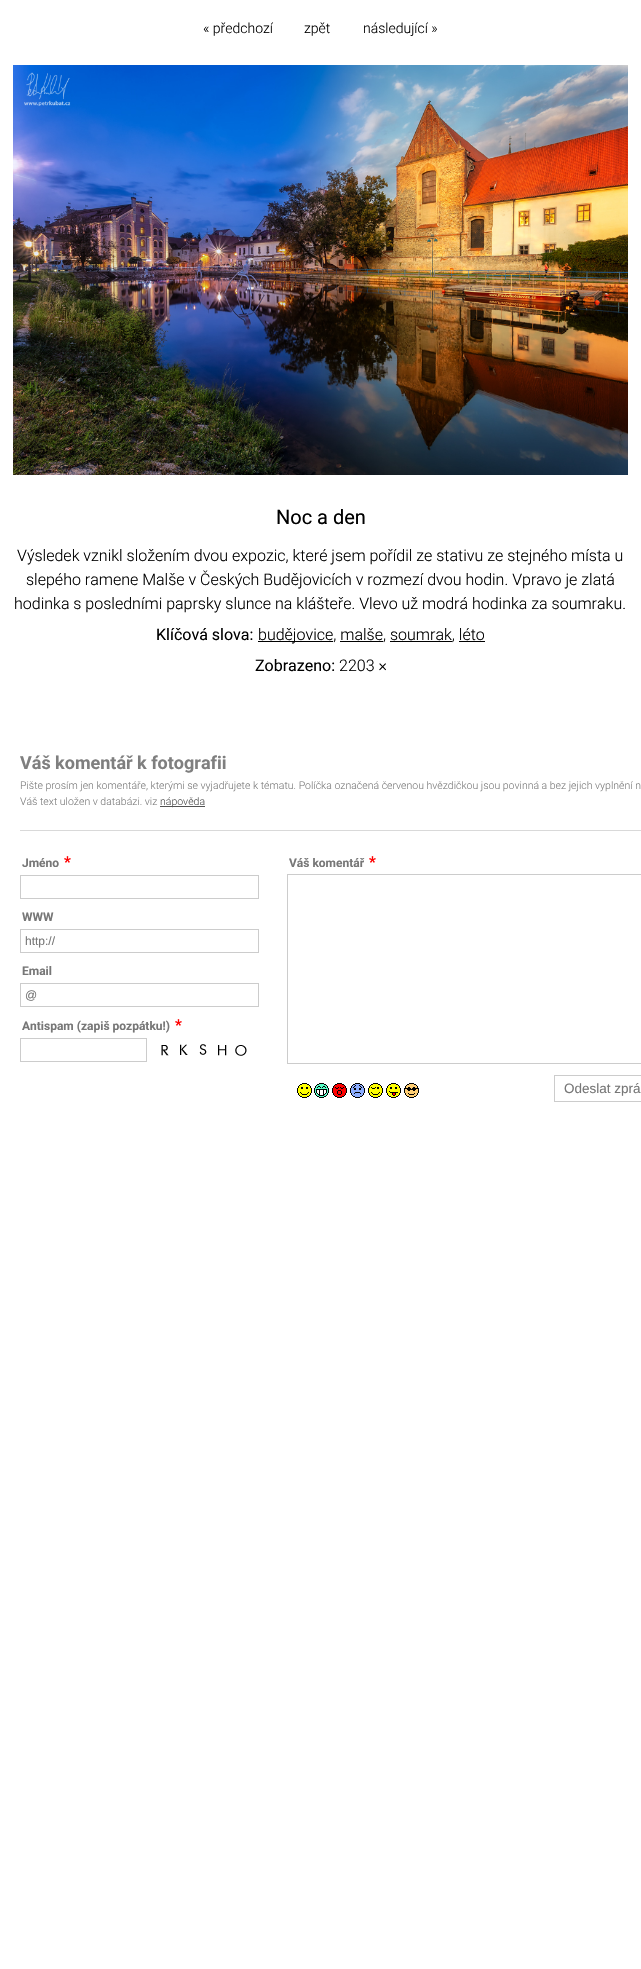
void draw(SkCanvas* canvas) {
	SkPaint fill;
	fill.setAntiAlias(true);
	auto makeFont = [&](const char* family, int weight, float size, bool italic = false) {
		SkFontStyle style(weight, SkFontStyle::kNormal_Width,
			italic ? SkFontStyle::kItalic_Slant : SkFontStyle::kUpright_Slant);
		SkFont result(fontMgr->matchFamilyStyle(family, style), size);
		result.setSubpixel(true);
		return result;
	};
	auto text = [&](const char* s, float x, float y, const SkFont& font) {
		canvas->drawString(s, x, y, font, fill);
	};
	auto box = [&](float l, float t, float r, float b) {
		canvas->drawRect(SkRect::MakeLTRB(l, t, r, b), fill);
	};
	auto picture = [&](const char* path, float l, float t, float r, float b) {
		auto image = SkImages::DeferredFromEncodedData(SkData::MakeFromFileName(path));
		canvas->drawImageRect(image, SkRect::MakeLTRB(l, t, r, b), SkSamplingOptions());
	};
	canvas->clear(0xFFFFFFFF);
	picture("image0.png", 13, 65, 628, 475);
	fill.setColor(0xFF000000);
	box(258, 641, 333, 642);
	box(340, 641, 383, 642);
	box(390, 641, 452, 642);
	box(459, 641, 485, 642);
	fill.setColor(0xFF525252);
	box(160, 806, 205, 807);
	fill.setColor(0xFFD9D9D9);
	box(20, 830, 641, 831);
	fill.setStyle(SkPaint::kStroke_Style);
	fill.setStrokeWidth(1);
	fill.setColor(0xFFCCCCCC);
	canvas->drawRect(SkRect::MakeLTRB(20.5f, 875.5f, 258.5f, 898.5f), fill);
	canvas->drawRect(SkRect::MakeLTRB(20.5f, 929.5f, 258.5f, 952.5f), fill);
	canvas->drawRect(SkRect::MakeLTRB(20.5f, 983.5f, 258.5f, 1006.5f), fill);
	canvas->drawRect(SkRect::MakeLTRB(20.5f, 1038.5f, 146.5f, 1061.5f), fill);
	picture("image1.png", 161, 1045, 169, 1056);
	picture("image2.png", 180, 1044, 188, 1055);
	picture("image3.png", 199, 1044, 207, 1055);
	picture("image4.png", 218, 1045, 227, 1056);
	picture("image5.png", 235, 1045, 247, 1056);
	canvas->drawRect(SkRect::MakeLTRB(287.5f, 874.5f, 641.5f, 1063.5f), fill);
	picture("image6.png", 297, 1083, 312, 1098);
	picture("image7.png", 314, 1083, 329, 1098);
	picture("image8.png", 332, 1083, 347, 1098);
	picture("image9.png", 350, 1083, 365, 1098);
	picture("image10.png", 368, 1083, 383, 1098);
	picture("image11.png", 386, 1083, 401, 1098);
	picture("image12.png", 404, 1083, 419, 1098);
	canvas->drawRect(SkRect::MakeLTRB(554.5f, 1075.5f, 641.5f, 1101.5f), fill);
	auto font1 = makeFont("Roboto", 300, 14);
	fill.setStyle(SkPaint::kFill_Style);
	fill.setColor(0xFF000000);
	text("« předchozí", 203, 33, font1);
	text("zpět", 304, 33, font1);
	text("následující »", 363, 33, font1);
	auto font2 = makeFont("Roboto", 400, 20);
	text("Noc a den", 276, 524, font2);
	auto font3 = makeFont("Roboto", 300, 16);
	text("Výsledek vznikl složením dvou expozic, které jsem pořídil ze stativu ze stejného místa u", 17, 561, font3);
	text("slepého ramene Malše v Českých Budějovicích v rozmezí dvou hodin. Vpravo je zlatá", 26, 585, font3);
	text("hodinka s posledními paprsky slunce na klášteře. Vlevo už modrá hodinka za soumraku.", 14, 609, font3);
	auto font4 = makeFont("Roboto", 400, 16);
	text("Klíčová slova:", 156, 640, font4);
	text("budějovice, malše, soumrak, léto", 258, 640, font3);
	text("Zobrazeno:", 255, 671, font4);
	text("2203 ×", 339, 671, font3);
	auto font5 = makeFont("Roboto", 700, 18);
	fill.setColor(0xFF7F7F7F);
	text("Váš komentář k fotografii", 20, 769, font5);
	auto font6 = makeFont("Roboto", 300, 10.5f);
	text("Pište prosím jen komentáře, kterými se vyjadřujete k tématu. Políčka označená červenou hvězdičkou jsou povinná a bez jejich vyplnění n", 20, 789, font6);
	text("Váš text uložen v databázi. viz", 20, 805, font6);
	fill.setColor(0xFF525252);
	text("nápověda", 160, 805, font6);
	auto font7 = makeFont("Roboto", 700, 12);
	fill.setColor(0xFF777777);
	text("Jméno", 22, 867, font7);
	auto font8 = makeFont("Roboto", 700, 15);
	fill.setColor(0xFFFF0000);
	text("*", 64, 867, font8);
	fill.setColor(0xFF777777);
	text("WWW", 22, 921, font7);
	auto font9 = makeFont("Liberation Sans", 400, 12);
	text("http://", 25, 945, font9);
	text("Email", 22, 975, font7);
	text("@", 25, 999, font9);
	text("Antispam (zapiš pozpátku!)", 22, 1030, font7);
	fill.setColor(0xFFFF0000);
	text("*", 175, 1030, font8);
	fill.setColor(0xFF777777);
	text("Váš komentář", 289, 867, font7);
	fill.setColor(0xFFFF0000);
	text("*", 369, 867, font8);
	auto font10 = makeFont("Liberation Sans", 400, 13.5f);
	fill.setColor(0xFF777777);
	text("Odeslat zprá", 564, 1093, font10);
}
